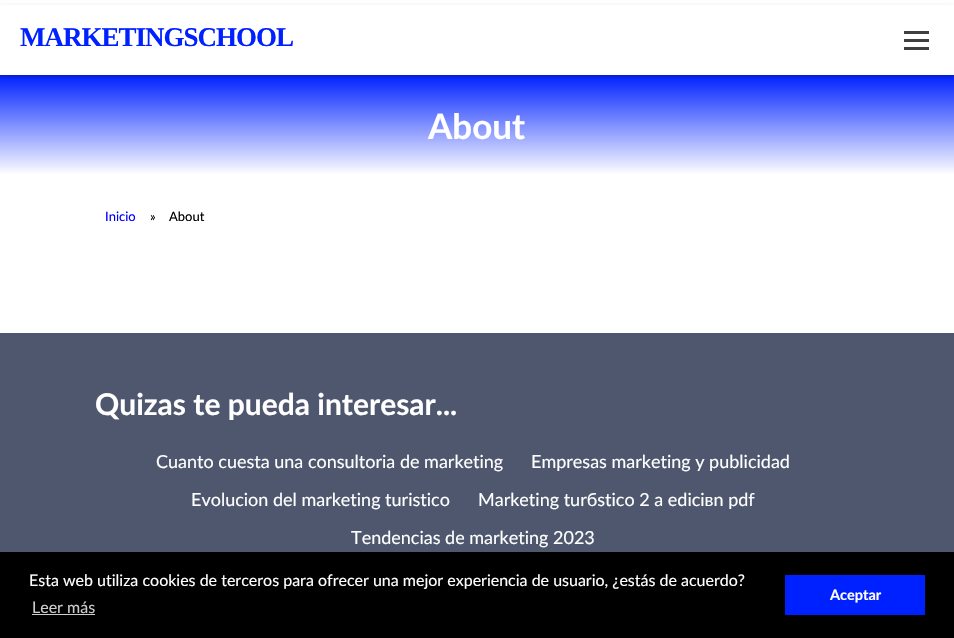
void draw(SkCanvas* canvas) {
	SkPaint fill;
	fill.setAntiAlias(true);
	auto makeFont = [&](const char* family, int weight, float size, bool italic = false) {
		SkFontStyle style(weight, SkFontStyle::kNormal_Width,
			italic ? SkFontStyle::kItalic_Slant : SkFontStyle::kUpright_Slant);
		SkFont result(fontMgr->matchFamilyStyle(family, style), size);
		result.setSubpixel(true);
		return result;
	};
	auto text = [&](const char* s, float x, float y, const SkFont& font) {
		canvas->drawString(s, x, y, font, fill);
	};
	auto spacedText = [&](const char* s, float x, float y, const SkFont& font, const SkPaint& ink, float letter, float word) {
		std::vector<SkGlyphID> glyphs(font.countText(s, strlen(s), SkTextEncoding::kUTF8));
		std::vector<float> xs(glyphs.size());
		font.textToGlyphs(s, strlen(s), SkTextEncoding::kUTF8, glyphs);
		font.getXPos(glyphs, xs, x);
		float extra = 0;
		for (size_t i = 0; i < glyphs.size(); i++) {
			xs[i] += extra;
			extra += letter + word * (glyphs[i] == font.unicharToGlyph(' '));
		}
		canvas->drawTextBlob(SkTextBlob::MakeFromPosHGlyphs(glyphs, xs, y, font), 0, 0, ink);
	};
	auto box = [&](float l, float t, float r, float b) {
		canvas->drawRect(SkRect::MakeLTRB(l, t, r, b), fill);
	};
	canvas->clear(0xFFFFFFFF);
	{
		const SkColor colors[] = {0xFF0021FF, 0xFFFFFFFF};
		const float stops[] = {0, 1};
		const SkPoint ends[] = {{477, 75}, {477, 175}};
		fill.setShader(SkGradientShader::MakeLinear(ends, colors, stops, 2, SkTileMode::kClamp));
		fill.setAlpha(255);
	}
	box(0, 75, 954, 174);
	canvas->save();
	canvas->clipPath(SkPathBuilder(SkPathFillType::kEvenOdd).moveTo(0, 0).lineTo(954, 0).lineTo(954, 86).lineTo(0, 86).close().moveTo(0, 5).lineTo(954, 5).lineTo(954, 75).lineTo(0, 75).close().detach(), true);
	fill.setShader(nullptr);
	fill.setColor(0x29000000);
	fill.setMaskFilter(SkMaskFilter::MakeBlur(kNormal_SkBlurStyle, 2.5f));
	canvas->drawRect(SkRect::MakeLTRB(0, 7, 954, 77), fill);
	fill.setMaskFilter(nullptr);
	canvas->restore();
	fill.setColor(0xFF3F3F3F);
	box(904, 31, 929, 34);
	box(904, 39, 929, 42);
	box(904, 47, 929, 50);
	fill.setColor(0xFF4E576E);
	box(0, 333, 954, 552);
	fill.setColor(0xFF000000);
	box(0, 552, 954, 638);
	fill.setColor(0xFFCCCCCC);
	box(32, 614, 95, 615);
	fill.setColor(0xFF0021FF);
	box(785, 575, 925, 615);
	auto font1 = makeFont("Liberation Serif", 700, 27);
	spacedText("MARKETINGSCHOOL", 20, 46, font1, fill, -1, 0);
	auto font2 = makeFont("Lato", 700, 35);
	fill.setColor(0xFFFFFFFF);
	text("About", 428, 139, font2);
	auto font3 = makeFont("Lato", 400, 13);
	fill.setColor(0xFF0000FF);
	text("Inicio", 105, 221, font3);
	fill.setColor(0xFF000000);
	text("»", 150, 221, font3);
	text("About", 169, 221, font3);
	auto font4 = makeFont("Lato", 700, 30);
	fill.setColor(0xFFFFFFFF);
	text("Quizas te pueda interesar...", 95, 415, font4);
	auto font5 = makeFont("Lato", 400, 18);
	text("Cuanto cuesta una consultoria de marketing", 156, 468, font5);
	text("Empresas marketing y publicidad", 531, 468, font5);
	text("Evolucion del marketing turistico", 191, 506, font5);
	text("Marketing turбstico 2 a ediciвn pdf", 478, 506, font5);
	text("Tendencias de marketing 2023", 351, 544, font5);
	auto font6 = makeFont("Lato", 400, 16);
	text("Esta web utiliza cookies de terceros para ofrecer una mejor experiencia de usuario, ¿estás de acuerdo?", 29, 586, font6);
	fill.setColor(0xFFCCCCCC);
	text("Leer más", 32, 613, font6);
	auto font7 = makeFont("Lato", 700, 14.5f);
	fill.setColor(0xFFFFFFFF);
	text("Aceptar", 830, 600, font7);
}
